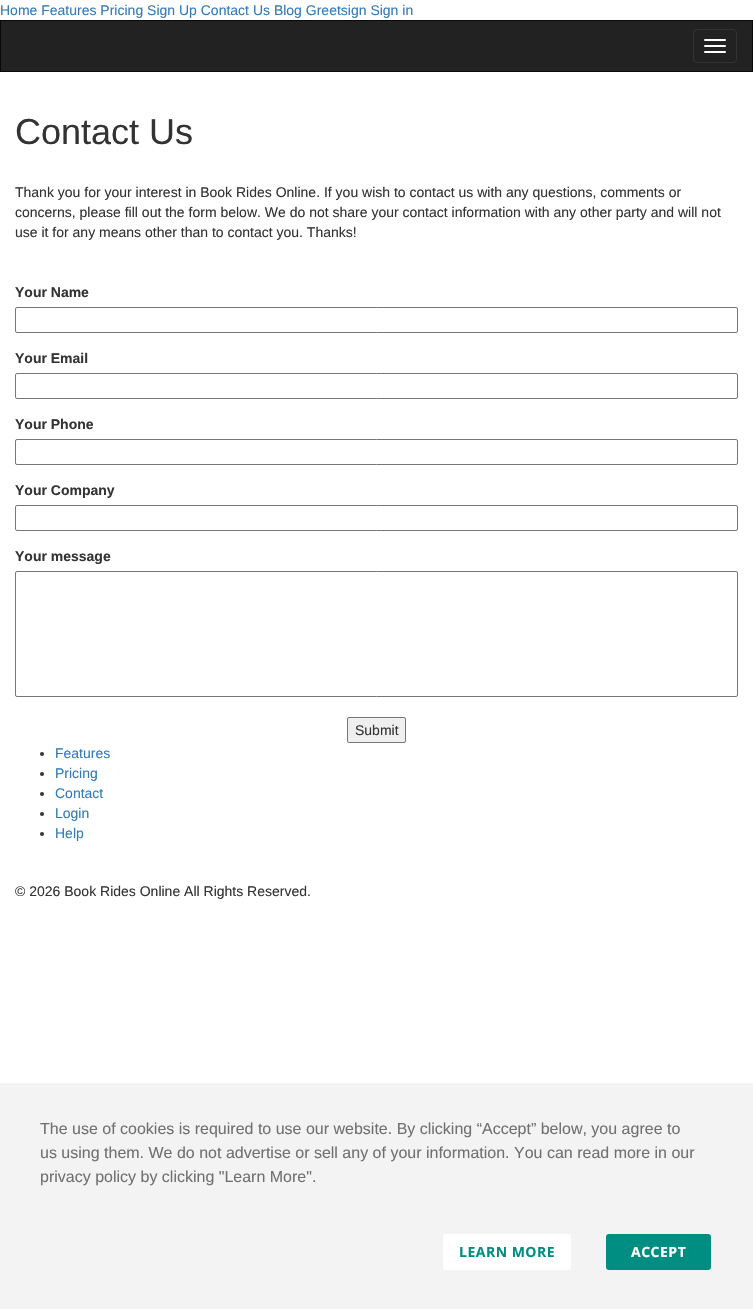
void draw(SkCanvas* canvas) {
	SkPaint fill;
	fill.setAntiAlias(true);
	auto makeFont = [&](const char* family, int weight, float size, bool italic = false) {
		SkFontStyle style(weight, SkFontStyle::kNormal_Width,
			italic ? SkFontStyle::kItalic_Slant : SkFontStyle::kUpright_Slant);
		SkFont result(fontMgr->matchFamilyStyle(family, style), size);
		result.setSubpixel(true);
		return result;
	};
	auto text = [&](const char* s, float x, float y, const SkFont& font) {
		canvas->drawString(s, x, y, font, fill);
	};
	auto spacedText = [&](const char* s, float x, float y, const SkFont& font, const SkPaint& ink, float letter, float word) {
		std::vector<SkGlyphID> glyphs(font.countText(s, strlen(s), SkTextEncoding::kUTF8));
		std::vector<float> xs(glyphs.size());
		font.textToGlyphs(s, strlen(s), SkTextEncoding::kUTF8, glyphs);
		font.getXPos(glyphs, xs, x);
		float extra = 0;
		for (size_t i = 0; i < glyphs.size(); i++) {
			xs[i] += extra;
			extra += letter + word * (glyphs[i] == font.unicharToGlyph(' '));
		}
		canvas->drawTextBlob(SkTextBlob::MakeFromPosHGlyphs(glyphs, xs, y, font), 0, 0, ink);
	};
	auto box = [&](float l, float t, float r, float b) {
		canvas->drawRect(SkRect::MakeLTRB(l, t, r, b), fill);
	};
	auto roundBox = [&](float l, float t, float r, float b, float radius) {
		canvas->drawRoundRect(SkRect::MakeLTRB(l, t, r, b), radius, radius, fill);
	};
	canvas->clear(0xFFFFFFFF);
	fill.setColor(0xFF222222);
	canvas->drawRect(SkRect::MakeLTRB(0.5f, 20.5f, 752.5f, 71.5f), fill);
	fill.setStyle(SkPaint::kStroke_Style);
	fill.setStrokeWidth(1);
	fill.setColor(0xFF080808);
	canvas->drawRect(SkRect::MakeLTRB(0.5f, 20.5f, 752.5f, 71.5f), fill);
	fill.setColor(0xFF333333);
	canvas->drawRoundRect(SkRect::MakeLTRB(693.5f, 29.5f, 736.5f, 62.5f), 3.5f, 3.5f, fill);
	fill.setStyle(SkPaint::kFill_Style);
	fill.setColor(0xFFFFFFFF);
	roundBox(704, 39, 726, 41, 1);
	roundBox(704, 45, 726, 47, 1);
	roundBox(704, 51, 726, 53, 1);
	fill.setStyle(SkPaint::kStroke_Style);
	fill.setColor(0xFF767676);
	canvas->drawRoundRect(SkRect::MakeLTRB(15.5f, 307.5f, 737.5f, 332.5f), 1.5f, 1.5f, fill);
	canvas->drawRoundRect(SkRect::MakeLTRB(15.5f, 373.5f, 737.5f, 398.5f), 1.5f, 1.5f, fill);
	canvas->drawRoundRect(SkRect::MakeLTRB(15.5f, 439.5f, 737.5f, 464.5f), 1.5f, 1.5f, fill);
	canvas->drawRoundRect(SkRect::MakeLTRB(15.5f, 505.5f, 737.5f, 530.5f), 1.5f, 1.5f, fill);
	canvas->drawRoundRect(SkRect::MakeLTRB(15.5f, 571.5f, 737.5f, 696.5f), 1.5f, 1.5f, fill);
	fill.setStyle(SkPaint::kFill_Style);
	fill.setColor(0xFFEFEFEF);
	canvas->drawRoundRect(SkRect::MakeLTRB(347.5f, 717.5f, 405.5f, 742.5f), 1.5f, 1.5f, fill);
	fill.setStyle(SkPaint::kStroke_Style);
	fill.setColor(0xFF767676);
	canvas->drawRoundRect(SkRect::MakeLTRB(347.5f, 717.5f, 405.5f, 742.5f), 1.5f, 1.5f, fill);
	fill.setStyle(SkPaint::kFill_Style);
	fill.setColor(0xFF333333);
	canvas->drawCircle(42, 754, 2, fill);
	canvas->drawCircle(42, 774, 2, fill);
	canvas->drawCircle(42, 794, 2, fill);
	canvas->drawCircle(42, 814, 2, fill);
	canvas->drawCircle(42, 834, 2, fill);
	fill.setColor(0xFFF3F3F3);
	box(0, 1083, 753, 1309);
	fill.setColor(0xFFFFFFFF);
	roundBox(443, 1234, 571, 1270, 3);
	fill.setColor(0xFF008E82);
	roundBox(606, 1234, 711, 1270, 3);
	auto font1 = makeFont("Liberation Sans", 400, 14);
	fill.setColor(0xFF337AB7);
	text("Home Features Pricing Sign Up Contact Us Blog Greetsign Sign in", 0, 15, font1);
	auto font2 = makeFont("Liberation Sans", 400, 36);
	fill.setColor(0xFF333333);
	text("Contact Us", 15, 144, font2);
	text("Thank you for your interest in Book Rides Online. If you wish to contact us with any questions, comments or", 15, 197, font1);
	text("concerns, please fill out the form below. We do not share your contact information with any other party and will not", 15, 217, font1);
	text("use it for any means other than to contact you. Thanks!", 15, 237, font1);
	auto font3 = makeFont("Liberation Sans", 700, 14);
	text("Your Name", 15, 297, font3);
	text("Your Email", 15, 363, font3);
	text("Your Phone", 15, 429, font3);
	text("Your Company", 15, 495, font3);
	text("Your message", 15, 561, font3);
	text("Submit", 355, 735, font1);
	fill.setColor(0xFF337AB7);
	text("Features", 55, 758, font1);
	text("Pricing", 55, 778, font1);
	text("Contact", 55, 798, font1);
	text("Login", 55, 818, font1);
	text("Help", 55, 838, font1);
	fill.setColor(0xFF333333);
	text("© 2026 Book Rides Online All Rights Reserved.", 15, 896, font1);
	auto font4 = makeFont("Liberation Sans", 400, 16);
	fill.setColor(0xFF707070);
	text("The use of cookies is required to use our website. By clicking “Accept” below, you agree to", 40, 1134, font4);
	text("us using them. We do not advertise or sell any of your information. You can read more in our", 40, 1158, font4);
	text("privacy policy by clicking \"Learn More\".", 40, 1182, font4);
	auto font5 = makeFont("Open Sans", 700, 14);
	fill.setColor(0xFF008E82);
	spacedText("LEARN MORE", 459, 1257, font5, fill, 0.5f, 0);
	fill.setColor(0xFFFFFFFF);
	spacedText("ACCEPT", 631, 1257, font5, fill, 0.5f, 0);
}
